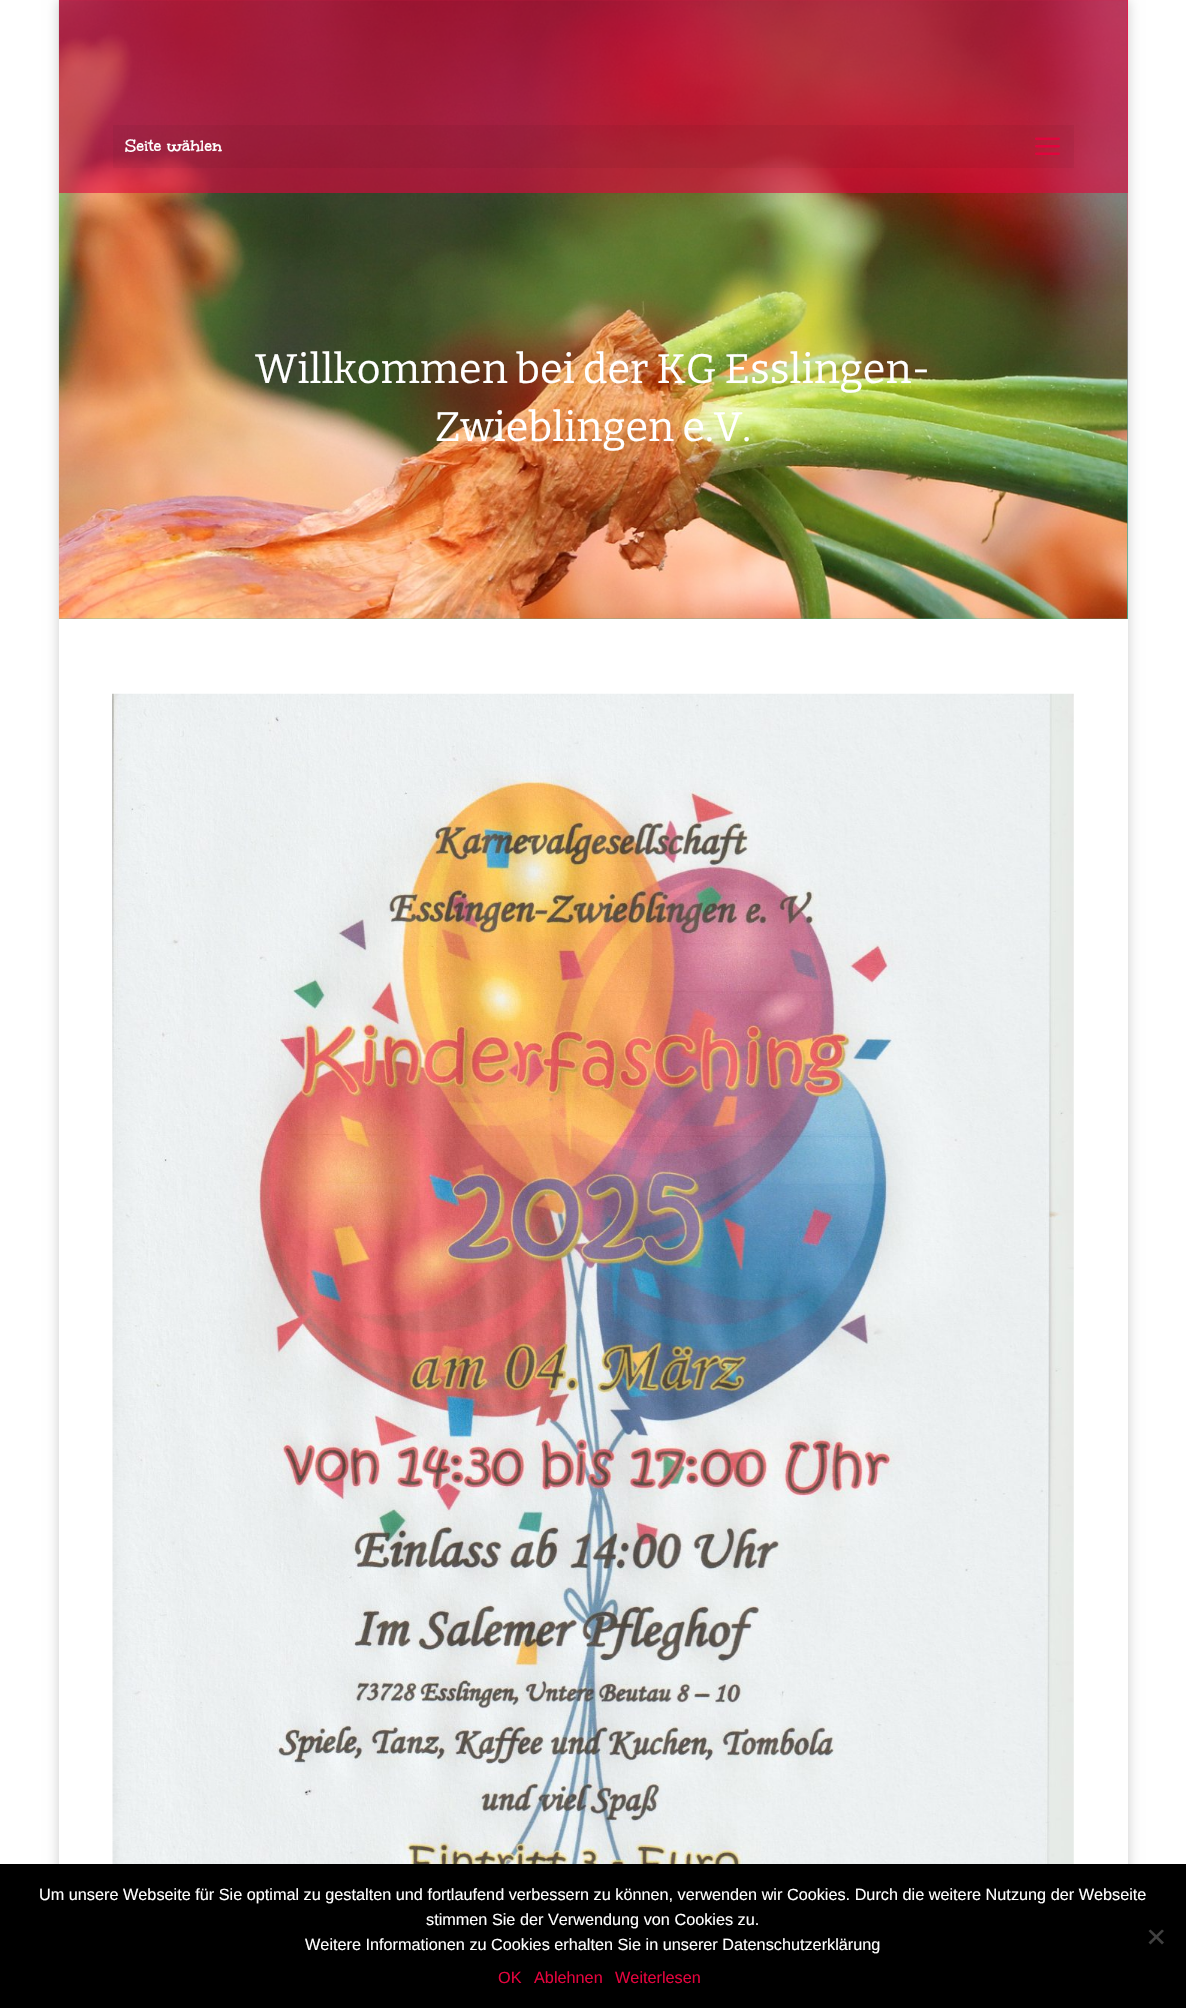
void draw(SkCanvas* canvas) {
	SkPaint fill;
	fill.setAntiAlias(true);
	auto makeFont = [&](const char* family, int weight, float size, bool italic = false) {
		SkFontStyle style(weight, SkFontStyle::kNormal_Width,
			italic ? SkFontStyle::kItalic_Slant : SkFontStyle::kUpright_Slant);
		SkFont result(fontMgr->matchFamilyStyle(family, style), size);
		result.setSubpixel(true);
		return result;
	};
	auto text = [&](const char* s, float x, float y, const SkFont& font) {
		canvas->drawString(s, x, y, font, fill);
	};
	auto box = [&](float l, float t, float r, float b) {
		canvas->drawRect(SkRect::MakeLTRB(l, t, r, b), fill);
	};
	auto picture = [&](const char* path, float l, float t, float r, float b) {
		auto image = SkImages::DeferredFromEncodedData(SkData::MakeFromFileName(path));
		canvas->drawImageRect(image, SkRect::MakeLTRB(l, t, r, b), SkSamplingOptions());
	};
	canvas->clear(0xFFFFFFFF);
	fill.setColor(0x33000000);
	fill.setMaskFilter(SkMaskFilter::MakeBlur(kNormal_SkBlurStyle, 6));
	canvas->drawRect(SkRect::MakeLTRB(59, 0, 1128, 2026), fill);
	fill.setMaskFilter(nullptr);
	{
		const SkColor colors[] = {0xFFFF3258, 0xFF29C4A9};
		const float stops[] = {0, 1};
		const SkPoint ends[] = {{593, 0}, {593, 619}};
		fill.setShader(SkGradientShader::MakeLinear(ends, colors, stops, 2, SkTileMode::kClamp));
		fill.setAlpha(255);
	}
	box(59, 0, 1128, 619);
	picture("image1.png", 58, 0, 1128, 619);
	fill.setShader(nullptr);
	fill.setColor(0x9CE2043D);
	box(59, 0, 1128, 193);
	fill.setColor(0x0D000000);
	box(113, 125, 1074, 168);
	picture("image0.png", 1035, 137, 1060, 155);
	fill.setColor(0xFFFFFFFF);
	box(59, 619, 1128, 1864);
	picture("image2.png", 112, 693, 1074, 1864);
	fill.setColor(0xFF000000);
	box(0, 1864, 1186, 2008);
	fill.setColor(0xFF404040);
	canvas->drawPath(SkPathBuilder().moveTo(1162, 1929.5f).lineTo(1164, 1931).lineTo(1150.5f, 1944.5f).lineTo(1148.5f, 1942.5f).close().detach(), fill);
	canvas->drawPath(SkPathBuilder().moveTo(1148.5f, 1931).lineTo(1150.5f, 1929.5f).lineTo(1164, 1942.5f).lineTo(1162, 1944.5f).close().detach(), fill);
	auto font1 = makeFont("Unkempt", 700, 17.5f);
	fill.setColor(0xFFFFFFFF);
	text("Seite wählen", 125, 152, font1);
	auto font2 = makeFont("Bitter", 100, 41.25f);
	text("Willkommen bei der KG Esslingen-", 255, 383, font2);
	text("Zwieblingen e.V.", 435, 441, font2);
	auto font3 = makeFont("Liberation Sans", 400, 16.25f);
	text("Um unsere Webseite für Sie optimal zu gestalten und fortlaufend verbessern zu können, verwenden wir Cookies. Durch die weitere Nutzung der Webseite", 39, 1900, font3);
	text("stimmen Sie der Verwendung von Cookies zu.", 426, 1925, font3);
	text("Weitere Informationen zu Cookies erhalten Sie in unserer Datenschutzerklärung", 305, 1950, font3);
	fill.setColor(0xFFE2043D);
	text("OK", 498, 1983, font3);
	text("Ablehnen", 534, 1983, font3);
	text("Weiterlesen", 615, 1983, font3);
}
